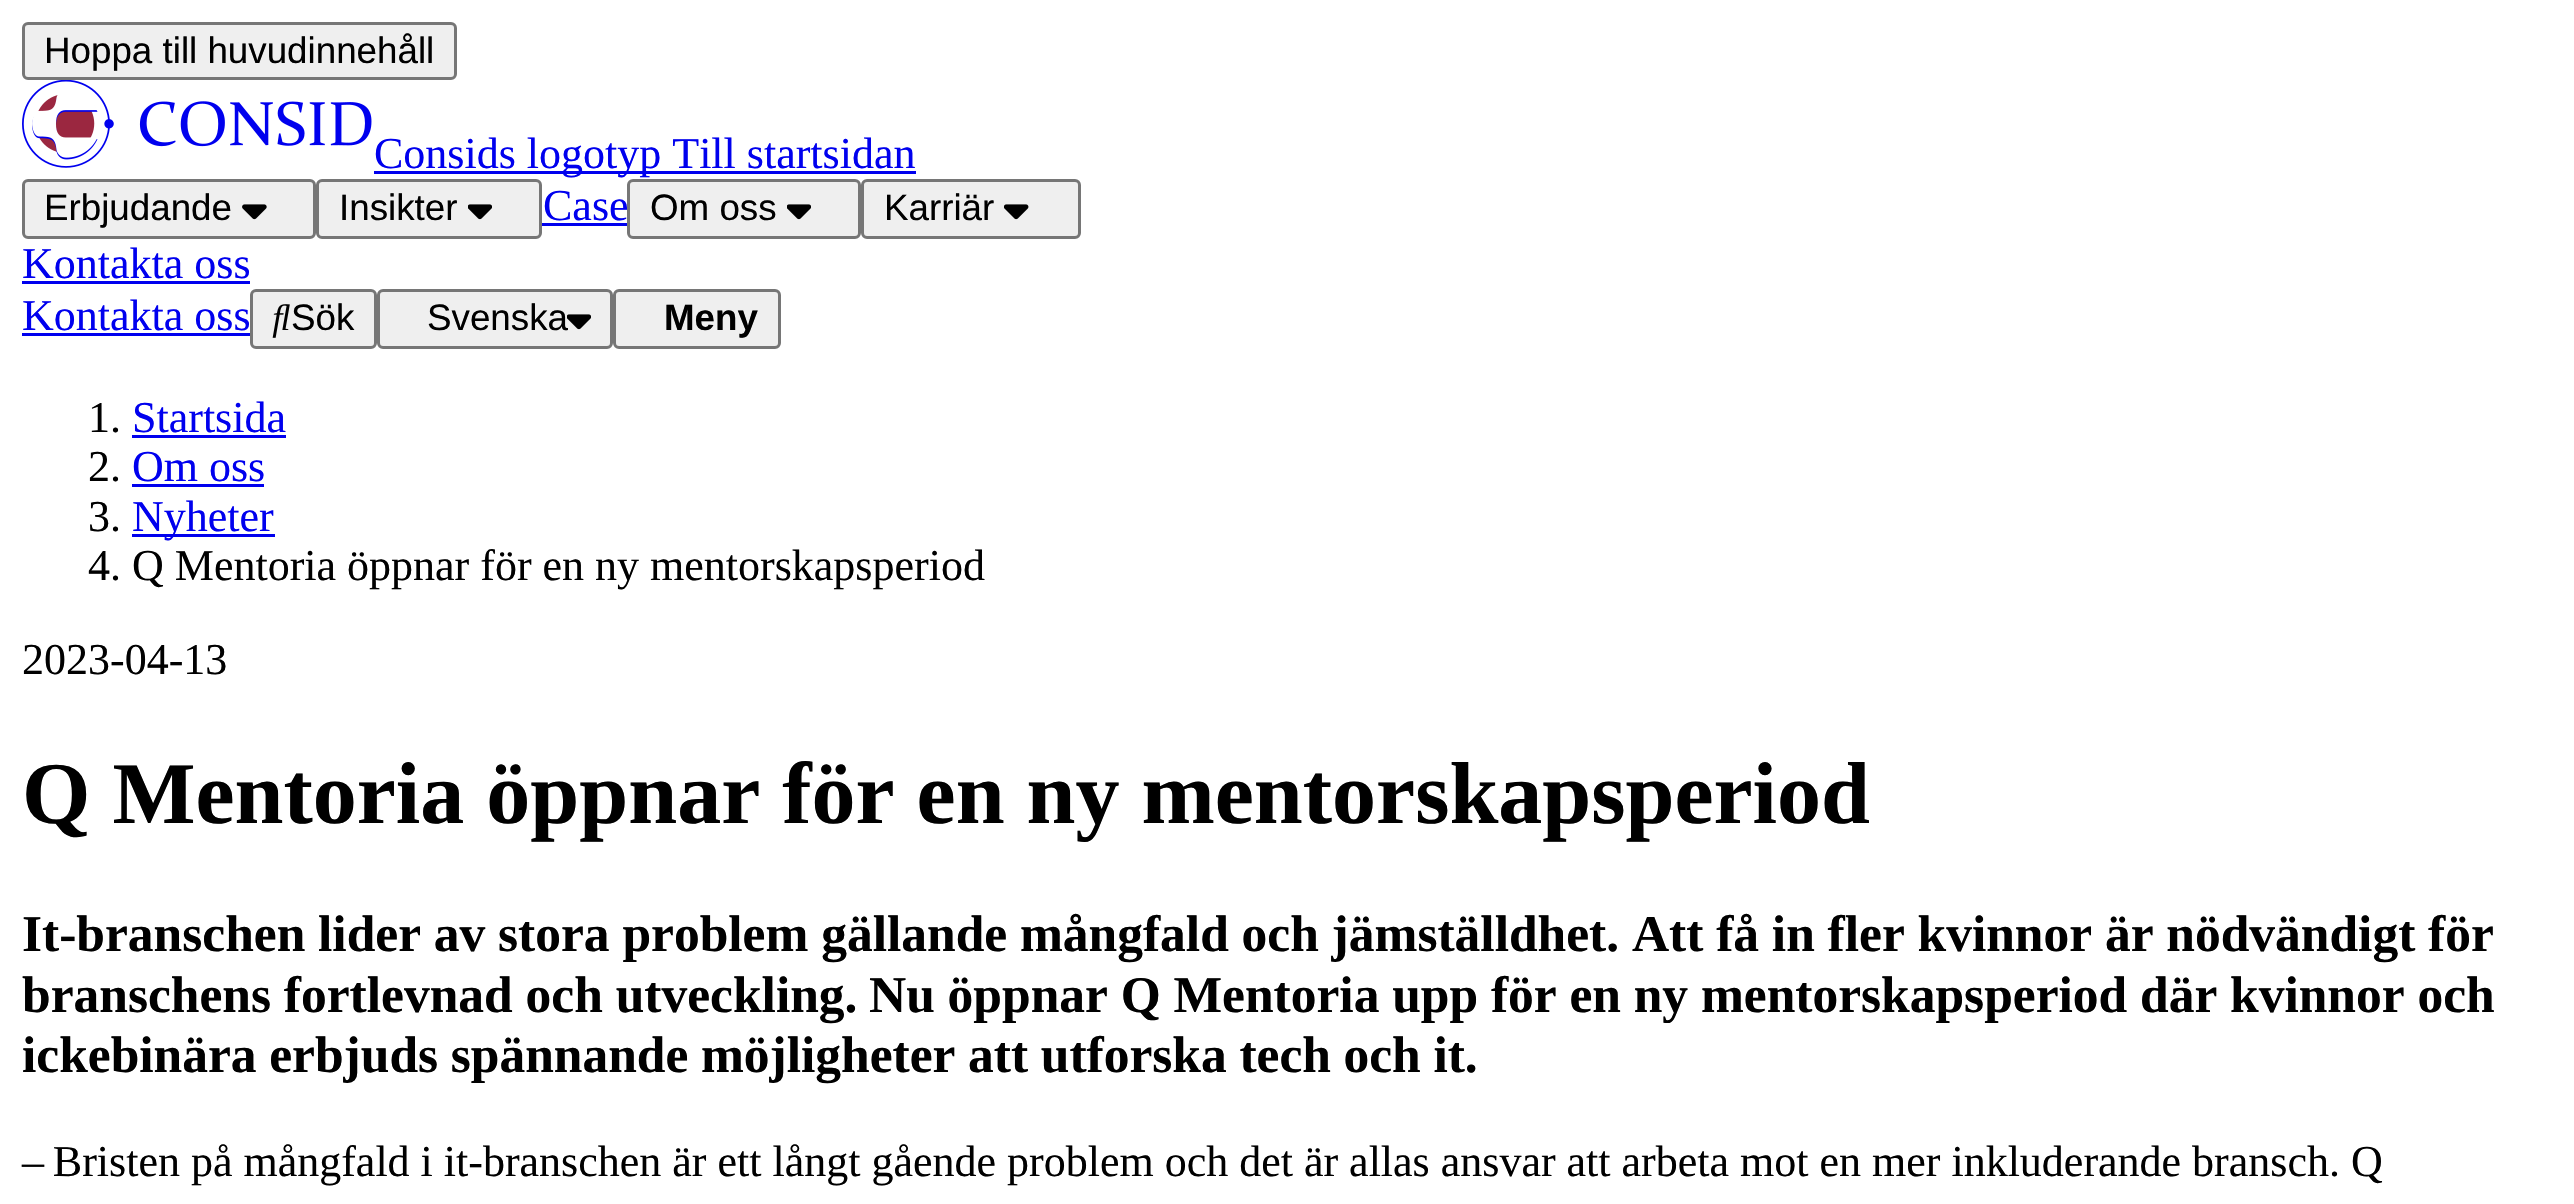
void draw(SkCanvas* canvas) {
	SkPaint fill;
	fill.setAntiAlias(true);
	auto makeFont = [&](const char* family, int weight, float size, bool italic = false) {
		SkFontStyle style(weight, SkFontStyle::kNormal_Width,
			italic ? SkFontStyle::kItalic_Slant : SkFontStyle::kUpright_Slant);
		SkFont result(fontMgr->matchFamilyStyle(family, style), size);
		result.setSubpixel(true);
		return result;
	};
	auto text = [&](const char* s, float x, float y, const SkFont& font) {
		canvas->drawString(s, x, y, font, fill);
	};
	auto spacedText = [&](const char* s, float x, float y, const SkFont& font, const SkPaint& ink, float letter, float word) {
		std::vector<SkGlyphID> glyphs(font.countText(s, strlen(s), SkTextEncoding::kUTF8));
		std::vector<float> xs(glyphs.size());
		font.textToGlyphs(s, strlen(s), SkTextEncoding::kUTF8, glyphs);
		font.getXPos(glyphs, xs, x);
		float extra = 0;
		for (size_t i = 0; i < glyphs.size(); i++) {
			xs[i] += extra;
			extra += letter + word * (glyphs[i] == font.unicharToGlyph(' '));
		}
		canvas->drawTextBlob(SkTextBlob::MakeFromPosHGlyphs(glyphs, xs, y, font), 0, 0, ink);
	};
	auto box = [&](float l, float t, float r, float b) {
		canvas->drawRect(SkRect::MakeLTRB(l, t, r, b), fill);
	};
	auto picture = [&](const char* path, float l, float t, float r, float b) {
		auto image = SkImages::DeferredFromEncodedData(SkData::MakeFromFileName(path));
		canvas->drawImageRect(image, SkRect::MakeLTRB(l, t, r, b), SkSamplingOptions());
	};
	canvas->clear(0xFFFFFFFF);
	fill.setColor(0xFFEFEFEF);
	canvas->drawRoundRect(SkRect::MakeLTRB(23.5f, 23.5f, 455.5f, 78.5f), 4.5f, 4.5f, fill);
	fill.setStyle(SkPaint::kStroke_Style);
	fill.setStrokeWidth(3);
	fill.setColor(0xFF767676);
	canvas->drawRoundRect(SkRect::MakeLTRB(23.5f, 23.5f, 455.5f, 78.5f), 4.5f, 4.5f, fill);
	picture("image0.png", 22, 80, 372, 168);
	fill.setStyle(SkPaint::kFill_Style);
	fill.setColor(0xFF0000EE);
	box(374, 171, 916, 174);
	fill.setColor(0xFFEFEFEF);
	canvas->drawRoundRect(SkRect::MakeLTRB(23.5f, 180.5f, 314.5f, 237.5f), 4.5f, 4.5f, fill);
	fill.setStyle(SkPaint::kStroke_Style);
	fill.setColor(0xFF767676);
	canvas->drawRoundRect(SkRect::MakeLTRB(23.5f, 180.5f, 314.5f, 237.5f), 4.5f, 4.5f, fill);
	picture("image1.png", 242, 204, 267, 220);
	fill.setStyle(SkPaint::kFill_Style);
	fill.setColor(0xFFEFEFEF);
	canvas->drawRoundRect(SkRect::MakeLTRB(317.5f, 180.5f, 540.5f, 237.5f), 4.5f, 4.5f, fill);
	fill.setStyle(SkPaint::kStroke_Style);
	fill.setColor(0xFF767676);
	canvas->drawRoundRect(SkRect::MakeLTRB(317.5f, 180.5f, 540.5f, 237.5f), 4.5f, 4.5f, fill);
	picture("image2.png", 468, 204, 492, 220);
	fill.setStyle(SkPaint::kFill_Style);
	fill.setColor(0xFF0000EE);
	box(542, 223, 627, 226);
	fill.setColor(0xFFEFEFEF);
	canvas->drawRoundRect(SkRect::MakeLTRB(628.5f, 180.5f, 859.5f, 237.5f), 4.5f, 4.5f, fill);
	fill.setStyle(SkPaint::kStroke_Style);
	fill.setColor(0xFF767676);
	canvas->drawRoundRect(SkRect::MakeLTRB(628.5f, 180.5f, 859.5f, 237.5f), 4.5f, 4.5f, fill);
	picture("image2.png", 787, 204, 811, 220);
	fill.setStyle(SkPaint::kFill_Style);
	fill.setColor(0xFFEFEFEF);
	canvas->drawRoundRect(SkRect::MakeLTRB(862.5f, 180.5f, 1079.5f, 237.5f), 4.5f, 4.5f, fill);
	fill.setStyle(SkPaint::kStroke_Style);
	fill.setColor(0xFF767676);
	canvas->drawRoundRect(SkRect::MakeLTRB(862.5f, 180.5f, 1079.5f, 237.5f), 4.5f, 4.5f, fill);
	picture("image3.png", 1004, 204, 1029, 220);
	fill.setStyle(SkPaint::kFill_Style);
	fill.setColor(0xFF0000EE);
	box(22, 281, 250, 284);
	box(22, 333, 250, 336);
	fill.setColor(0xFFEFEFEF);
	canvas->drawRoundRect(SkRect::MakeLTRB(251.5f, 290.5f, 375.5f, 347.5f), 4.5f, 4.5f, fill);
	fill.setStyle(SkPaint::kStroke_Style);
	fill.setColor(0xFF767676);
	canvas->drawRoundRect(SkRect::MakeLTRB(251.5f, 290.5f, 375.5f, 347.5f), 4.5f, 4.5f, fill);
	picture("image4.png", 272, 304, 290, 338);
	fill.setStyle(SkPaint::kFill_Style);
	fill.setColor(0xFFEFEFEF);
	canvas->drawRoundRect(SkRect::MakeLTRB(378.5f, 290.5f, 611.5f, 347.5f), 4.5f, 4.5f, fill);
	fill.setStyle(SkPaint::kStroke_Style);
	fill.setColor(0xFF767676);
	canvas->drawRoundRect(SkRect::MakeLTRB(378.5f, 290.5f, 611.5f, 347.5f), 4.5f, 4.5f, fill);
	fill.setStyle(SkPaint::kFill_Style);
	fill.setColor(0xFFEFEFEF);
	canvas->drawRoundRect(SkRect::MakeLTRB(614.5f, 290.5f, 779.5f, 347.5f), 4.5f, 4.5f, fill);
	fill.setStyle(SkPaint::kStroke_Style);
	fill.setColor(0xFF767676);
	canvas->drawRoundRect(SkRect::MakeLTRB(614.5f, 290.5f, 779.5f, 347.5f), 4.5f, 4.5f, fill);
	fill.setStyle(SkPaint::kFill_Style);
	fill.setColor(0xFF0000EE);
	box(132, 435, 286, 438);
	box(132, 484, 264, 487);
	box(132, 534, 275, 537);
	auto font1 = makeFont("Liberation Sans", 400, 36.75f);
	fill.setColor(0xFF000000);
	text("Hoppa till huvudinnehåll", 44, 63, font1);
	auto font2 = makeFont("Liberation Serif", 400, 44);
	fill.setColor(0xFF0000EE);
	text("Consids logotyp Till startsidan", 374, 168, font2);
	fill.setColor(0xFF000000);
	text("Erbjudande", 44, 220, font1);
	text("Insikter", 339, 220, font1);
	fill.setColor(0xFF0000EE);
	text("Case", 543, 220, font2);
	fill.setColor(0xFF000000);
	text("Om oss", 650, 220, font1);
	text("Karriär", 884, 220, font1);
	fill.setColor(0xFF0000EE);
	text("Kontakta oss", 22, 278, font2);
	text("Kontakta oss", 22, 330, font2);
	fill.setColor(0xFF000000);
	text("Sök", 291, 330, font1);
	text("Svenska", 427, 330, font1);
	picture("image5.png", 567, 314, 591, 330);
	auto font3 = makeFont("Liberation Sans", 700, 36.75f);
	text("Meny", 664, 330, font3);
	text("1.", 88, 432, font2);
	fill.setColor(0xFF0000EE);
	text("Startsida", 132, 432, font2);
	fill.setColor(0xFF000000);
	text("2.", 88, 481, font2);
	fill.setColor(0xFF0000EE);
	text("Om oss", 132, 481, font2);
	fill.setColor(0xFF000000);
	text("3.", 88, 531, font2);
	fill.setColor(0xFF0000EE);
	text("Nyheter", 132, 531, font2);
	fill.setColor(0xFF000000);
	text("4. Q Mentoria öppnar för en ny mentorskapsperiod", 88, 580, font2);
	text("2023-04-13", 22, 674, font2);
	auto font4 = makeFont("Liberation Serif", 700, 88);
	text("Q Mentoria öppnar för en ny mentorskapsperiod", 22, 823, font4);
	auto font5 = makeFont("Liberation Serif", 700, 51.5f);
	spacedText("It-branschen lider av stora problem gällande mångfald och jämställdhet. Att få in fler kvinnor är nödvändigt för", 22, 951, font5, fill, 0, -0.1f);
	text("branschens fortlevnad och utveckling.", 22, 1012, font5);
	spacedText("Nu öppnar Q Mentoria upp för en ny mentorskapsperiod där kvinnor och", 869, 1012, font5, fill, 0, -0.1f);
	spacedText("ickebinära erbjuds spännande möjligheter att utforska tech och it.", 22, 1072, font5, fill, 0, -0.25f);
	text("– Bristen på mångfald i it-branschen är ett långt gående problem och det är allas ansvar att arbeta mot en mer inkluderande bransch. Q", 22, 1176, font2);
}
